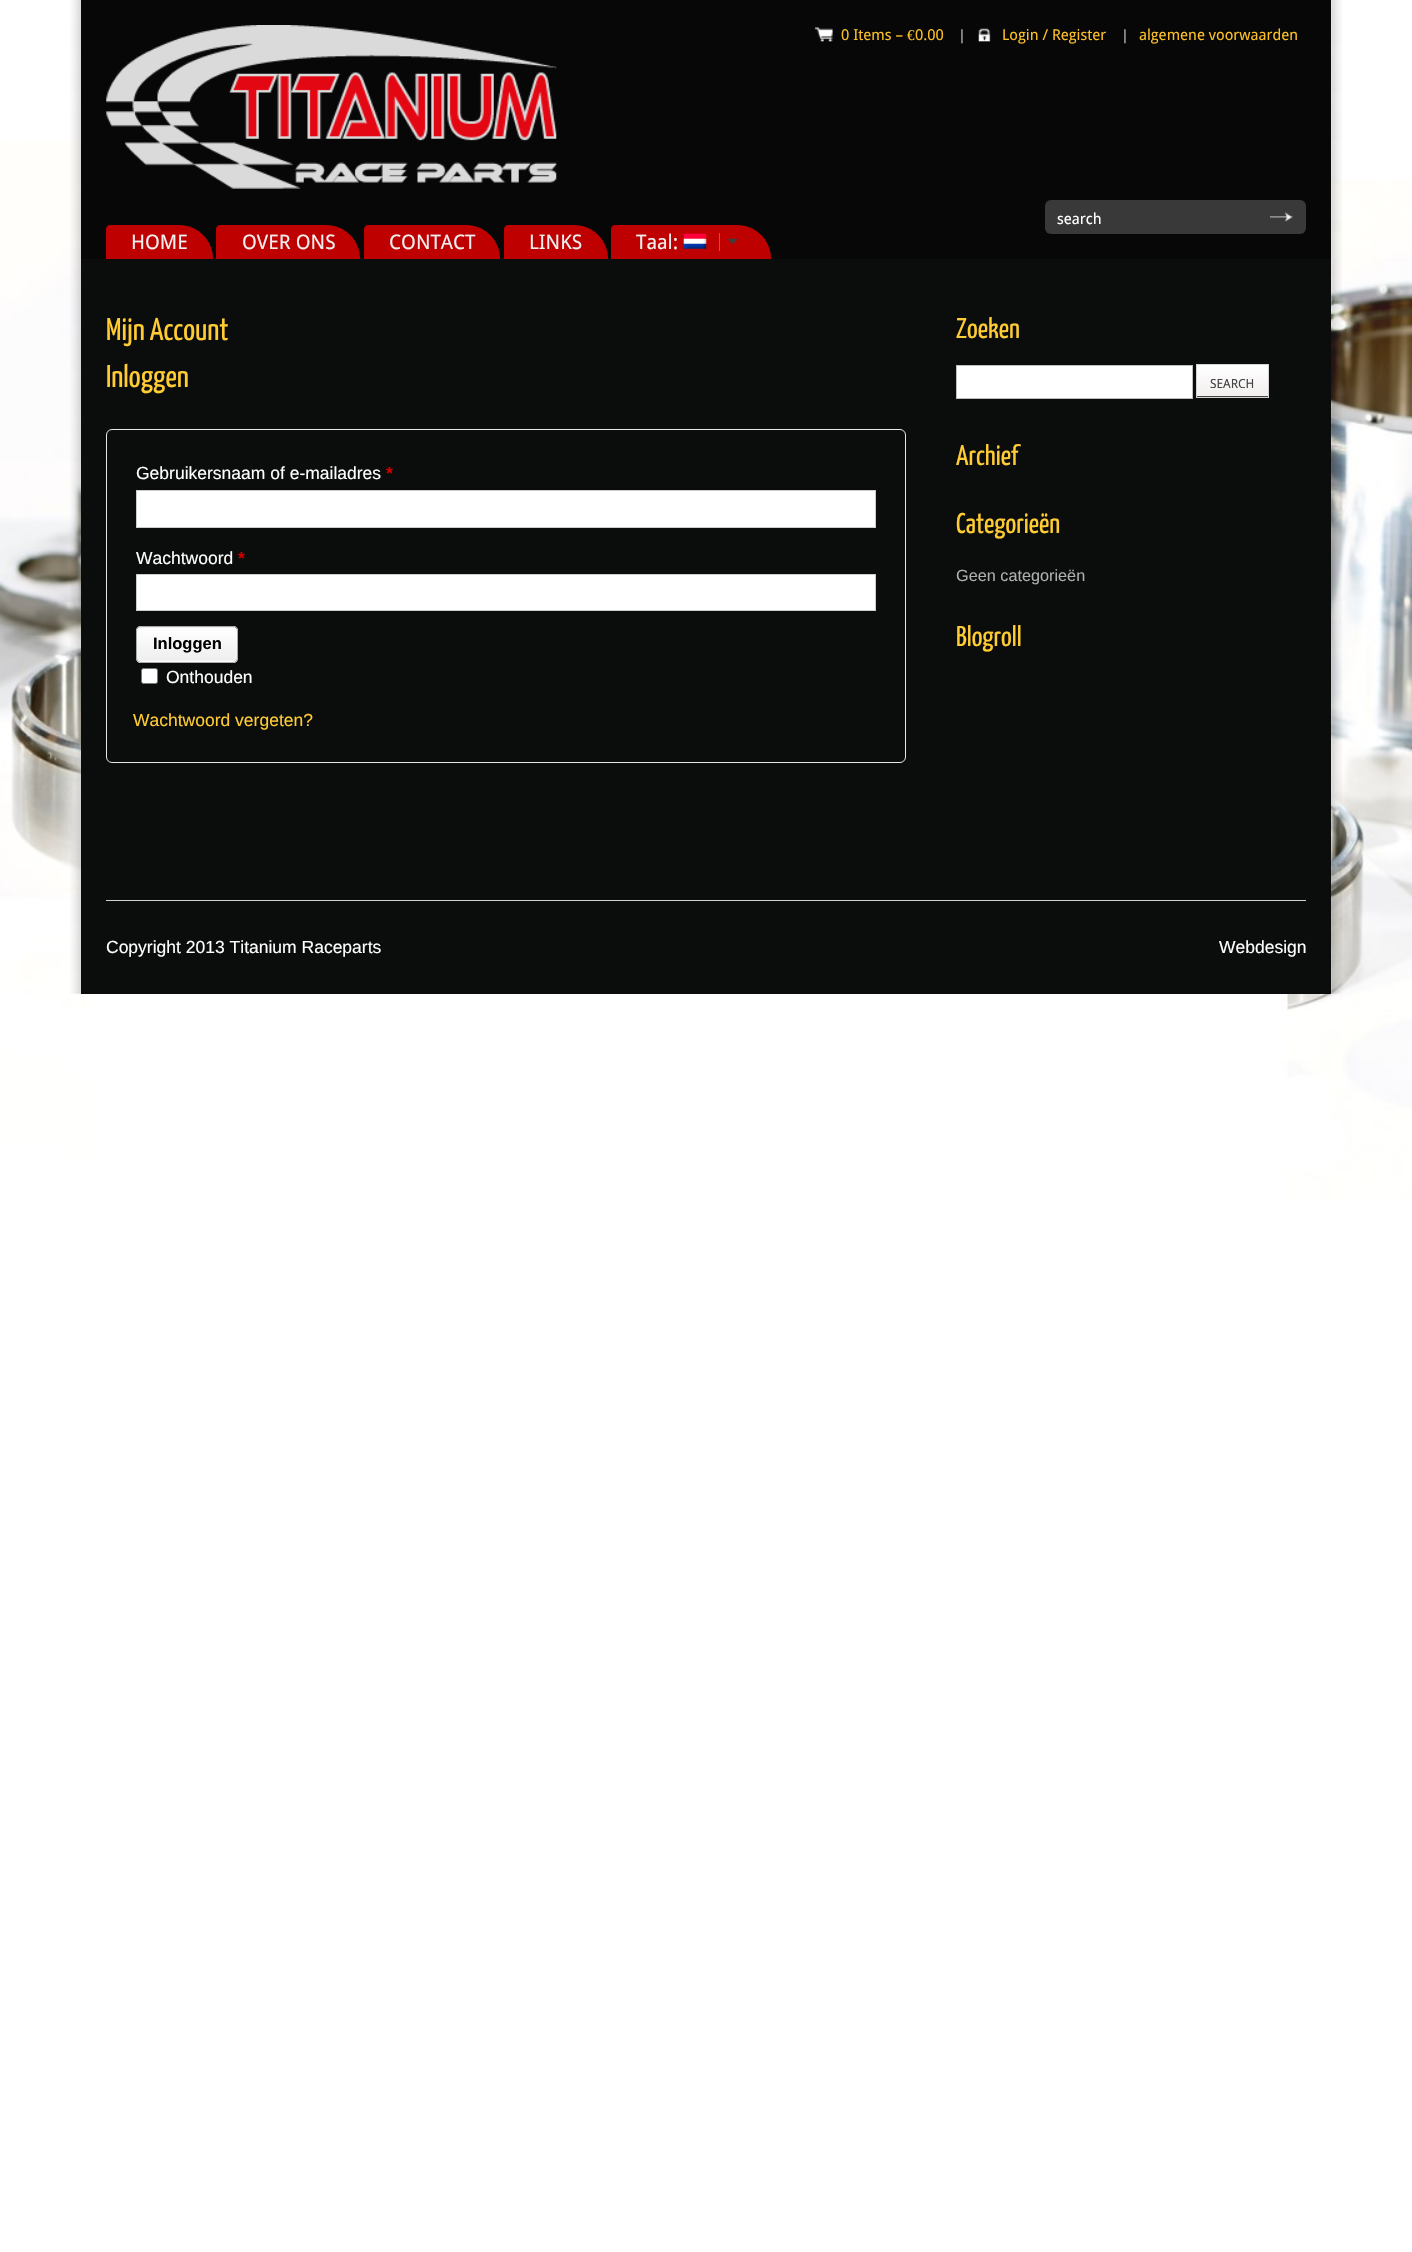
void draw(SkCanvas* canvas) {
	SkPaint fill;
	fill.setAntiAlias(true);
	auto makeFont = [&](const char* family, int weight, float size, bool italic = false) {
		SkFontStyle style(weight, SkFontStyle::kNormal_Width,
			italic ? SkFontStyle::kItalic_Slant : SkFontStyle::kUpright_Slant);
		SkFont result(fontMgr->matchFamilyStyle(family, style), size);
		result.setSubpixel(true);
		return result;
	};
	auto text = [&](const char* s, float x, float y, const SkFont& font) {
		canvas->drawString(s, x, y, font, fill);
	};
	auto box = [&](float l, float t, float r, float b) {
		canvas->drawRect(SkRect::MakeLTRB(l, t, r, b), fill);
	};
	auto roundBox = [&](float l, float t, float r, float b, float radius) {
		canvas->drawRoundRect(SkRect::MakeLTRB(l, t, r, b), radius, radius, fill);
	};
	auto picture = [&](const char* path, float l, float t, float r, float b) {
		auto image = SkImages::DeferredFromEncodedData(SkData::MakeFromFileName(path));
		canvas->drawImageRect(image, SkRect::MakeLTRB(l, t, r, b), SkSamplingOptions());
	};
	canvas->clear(0xFFFFFFFF);
	picture("image0.png", 0, 140, 1412, 1200);
	picture("image1.png", 0, 285, 1412, 737);
	picture("image2.png", 70, 0, 1342, 994);
	fill.setColor(0xFF0B0C0C);
	box(81, 259, 1331, 994);
	fill.setColor(0xFF070707);
	box(81, 0, 1331, 259);
	picture("image3.png", 106, 25, 557, 189);
	picture("image4.png", 814, 27, 833, 42);
	picture("image5.png", 978, 28, 991, 42);
	fill.setColor(0xFF393939);
	roundBox(1045, 200, 1306, 234, 6);
	picture("image6.png", 1270, 212, 1293, 222);
	fill.setColor(0xFFBF0000);
	canvas->drawPath(SkPathBuilder().moveTo(110, 225).lineTo(179, 225).cubicTo(198, 225, 213, 240, 213, 259).lineTo(106, 259).lineTo(106, 229).cubicTo(106, 227, 108, 225, 110, 225).close().detach(), fill);
	canvas->drawPath(SkPathBuilder().moveTo(220, 225).lineTo(326, 225).cubicTo(345, 225, 360, 240, 360, 259).lineTo(216, 259).lineTo(216, 229).cubicTo(216, 227, 218, 225, 220, 225).close().detach(), fill);
	canvas->drawPath(SkPathBuilder().moveTo(368, 225).lineTo(466, 225).cubicTo(485, 225, 500, 240, 500, 259).lineTo(364, 259).lineTo(364, 229).cubicTo(364, 227, 366, 225, 368, 225).close().detach(), fill);
	canvas->drawPath(SkPathBuilder().moveTo(508, 225).lineTo(574, 225).cubicTo(593, 225, 608, 240, 608, 259).lineTo(504, 259).lineTo(504, 229).cubicTo(504, 227, 506, 225, 508, 225).close().detach(), fill);
	canvas->drawPath(SkPathBuilder().moveTo(615, 225).lineTo(737, 225).cubicTo(756, 225, 771, 240, 771, 259).lineTo(611, 259).lineTo(611, 229).cubicTo(611, 227, 613, 225, 615, 225).close().detach(), fill);
	picture("image7.png", 683, 233, 707, 249);
	picture("image8.png", 727, 238, 738, 245);
	fill.setColor(0xFF717171);
	box(719, 233, 720, 251);
	fill.setStyle(SkPaint::kStroke_Style);
	fill.setStrokeWidth(1);
	fill.setColor(0xFFE7E7E7);
	canvas->drawRoundRect(SkRect::MakeLTRB(106.5f, 429.5f, 905.5f, 762.5f), 5.5f, 5.5f, fill);
	fill.setStyle(SkPaint::kFill_Style);
	fill.setColor(0xFFFFFFFF);
	canvas->drawRect(SkRect::MakeLTRB(136.5f, 490.5f, 875.5f, 527.5f), fill);
	fill.setStyle(SkPaint::kStroke_Style);
	fill.setColor(0xFFCCCCCC);
	canvas->drawRect(SkRect::MakeLTRB(136.5f, 490.5f, 875.5f, 527.5f), fill);
	fill.setStyle(SkPaint::kFill_Style);
	fill.setColor(0xFFFFFFFF);
	canvas->drawRect(SkRect::MakeLTRB(136.5f, 574.5f, 875.5f, 610.5f), fill);
	fill.setStyle(SkPaint::kStroke_Style);
	fill.setColor(0xFFCCCCCC);
	canvas->drawRect(SkRect::MakeLTRB(136.5f, 574.5f, 875.5f, 610.5f), fill);
	canvas->save();
	canvas->clipPath(SkPathBuilder().moveTo(141, 626).lineTo(233, 626).cubicTo(236, 626, 238, 628, 238, 631).lineTo(238, 658).cubicTo(238, 661, 236, 663, 233, 663).lineTo(141, 663).cubicTo(138, 663, 136, 661, 136, 658).lineTo(136, 631).cubicTo(136, 628, 138, 626, 141, 626).close().detach(), true);
	fill.setStyle(SkPaint::kFill_Style);
	{
		const SkColor colors[] = {0xFFFFFFFF, 0xFFEEEEEE};
		const float stops[] = {0, 1};
		const SkPoint ends[] = {{187, 594}, {187, 628}};
		fill.setShader(SkGradientShader::MakeLinear(ends, colors, stops, 2, SkTileMode::kClamp));
		fill.setAlpha(255);
	}
	box(136, 626, 238, 628);
	{
		const SkColor colors[] = {0xFFFFFFFF, 0xFFEEEEEE};
		const float stops[] = {0, 1};
		const SkPoint ends[] = {{187, 628}, {187, 661}};
		fill.setShader(SkGradientShader::MakeLinear(ends, colors, stops, 2, SkTileMode::kClamp));
		fill.setAlpha(255);
	}
	box(136, 628, 238, 661);
	{
		const SkColor colors[] = {0xFFFFFFFF, 0xFFEEEEEE};
		const float stops[] = {0, 1};
		const SkPoint ends[] = {{187, 661}, {187, 695}};
		fill.setShader(SkGradientShader::MakeLinear(ends, colors, stops, 2, SkTileMode::kClamp));
		fill.setAlpha(255);
	}
	box(136, 661, 238, 663);
	canvas->restore();
	fill.setStyle(SkPaint::kStroke_Style);
	fill.setShader(nullptr);
	fill.setColor(0x40FFFFFF);
	canvas->drawRoundRect(SkRect::MakeLTRB(138.5f, 628.5f, 235.5f, 660.5f), 3.5f, 3.5f, fill);
	fill.setColor(0xFFAAAAAA);
	canvas->drawRoundRect(SkRect::MakeLTRB(136.5f, 626.5f, 237.5f, 662.5f), 4.5f, 4.5f, fill);
	fill.setStyle(SkPaint::kFill_Style);
	fill.setColor(0xFFFFFFFF);
	canvas->drawRoundRect(SkRect::MakeLTRB(141.5f, 668.5f, 157.5f, 683.5f), 2, 2, fill);
	fill.setStyle(SkPaint::kStroke_Style);
	fill.setColor(0xFF767676);
	canvas->drawRoundRect(SkRect::MakeLTRB(141.5f, 668.5f, 157.5f, 683.5f), 2, 2, fill);
	fill.setStyle(SkPaint::kFill_Style);
	fill.setColor(0xFFFFFFFF);
	canvas->drawRect(SkRect::MakeLTRB(956.5f, 365.5f, 1192.5f, 398.5f), fill);
	fill.setStyle(SkPaint::kStroke_Style);
	fill.setColor(0xFFBDBEBE);
	canvas->drawRect(SkRect::MakeLTRB(956.5f, 365.5f, 1192.5f, 398.5f), fill);
	picture("image9.png", 1197, 365, 1268, 397);
	fill.setColor(0xFFD5D4D4);
	canvas->drawRect(SkRect::MakeLTRB(1196.5f, 364.5f, 1268.5f, 397.5f), fill);
	fill.setStyle(SkPaint::kFill_Style);
	fill.setColor(0xFFD1D2D2);
	box(106, 900, 1306, 901);
	auto font1 = makeFont("Droid Sans", 400, 15);
	fill.setColor(0xFFFCBF27);
	text("0 Items –", 841, 40, font1);
	auto font2 = makeFont("Liberation Serif", 400, 15);
	text("€", 907, 40, font2);
	text("0.00", 915, 40, font1);
	auto font3 = makeFont("Liberation Sans", 400, 15);
	fill.setColor(0xFFAFAFAF);
	text("|", 960, 40, font3);
	fill.setColor(0xFFFCBF27);
	text("Login / Register", 1002, 40, font1);
	fill.setColor(0xFFAFAFAF);
	text("|", 1123, 40, font3);
	fill.setColor(0xFFFCBF27);
	text("algemene voorwaarden", 1139, 40, font1);
	fill.setColor(0xFFFFFFFF);
	text("search", 1057, 224, font1);
	auto font4 = makeFont("Droid Sans", 400, 20);
	fill.setColor(0xFFEFEFEF);
	text("HOME", 131, 249, font4);
	text("OVER ONS", 242, 249, font4);
	text("CONTACT", 389, 249, font4);
	text("LINKS", 529, 249, font4);
	text("Taal:", 636, 249, font4);
	auto font5 = makeFont("Yanone Kaffeesatz", 200, 31.5f);
	fill.setColor(0xFFFFCC33);
	text("Mijn Account", 106, 340, font5);
	text("Inloggen", 106, 387, font5);
	auto font6 = makeFont("Liberation Sans", 400, 17.5f);
	fill.setColor(0xFFFFFFFF);
	text("Gebruikersnaam of e-mailadres", 136, 479, font6);
	auto font7 = makeFont("Liberation Sans", 700, 17.5f);
	fill.setColor(0xFFCC0000);
	text("*", 386, 479, font7);
	fill.setColor(0xFFFFFFFF);
	text("Wachtwoord", 136, 564, font6);
	fill.setColor(0xFFCC0000);
	text("*", 238, 564, font7);
	auto font8 = makeFont("Liberation Sans", 700, 16.5f);
	fill.setColor(0xFF000000);
	text("Inloggen", 153, 649, font8);
	fill.setColor(0xFFFFFFFF);
	text("Onthouden", 166, 683, font6);
	fill.setColor(0xFFFFCC33);
	text("Wachtwoord vergeten?", 133, 726, font6);
	auto font9 = makeFont("Yanone Kaffeesatz", 200, 28.5f);
	text("Zoeken", 956, 338, font9);
	auto font10 = makeFont("Droid Sans", 400, 12.5f);
	fill.setColor(0xFF444444);
	text("SEARCH", 1210, 388, font10);
	fill.setColor(0xFFFFCC33);
	text("Archief", 956, 465, font9);
	text("Categorieën", 956, 533, font9);
	auto font11 = makeFont("Liberation Sans", 400, 16.25f);
	fill.setColor(0xFFAFAFAF);
	text("Geen categorieën", 956, 581, font11);
	fill.setColor(0xFFFFCC33);
	text("Blogroll", 956, 646, font9);
	fill.setColor(0xFFFFFFFF);
	text("Copyright 2013 Titanium Raceparts", 106, 953, font6);
	text("Webdesign", 1219, 953, font6);
}
